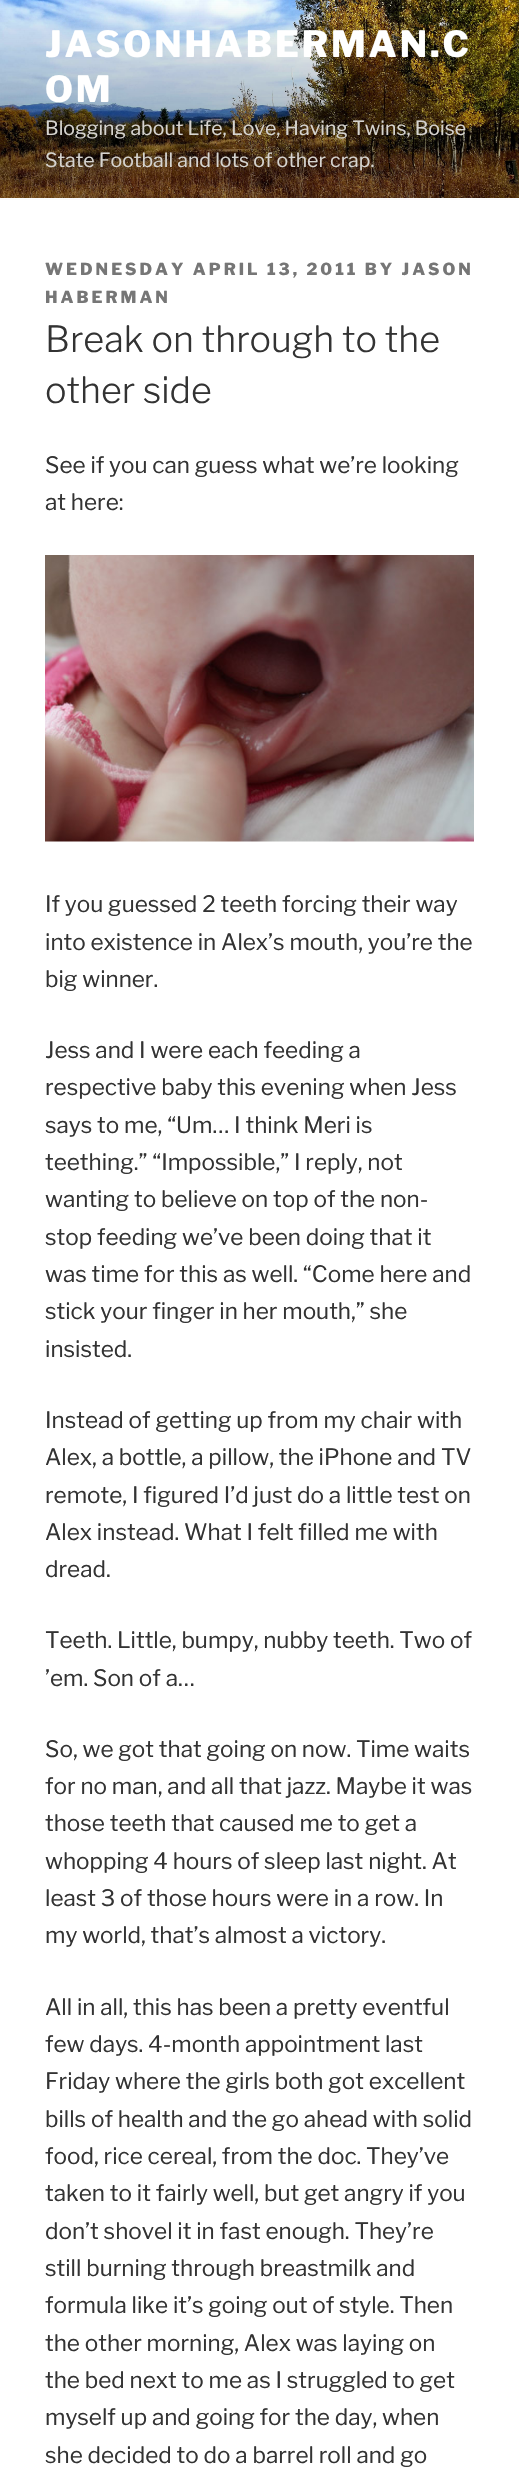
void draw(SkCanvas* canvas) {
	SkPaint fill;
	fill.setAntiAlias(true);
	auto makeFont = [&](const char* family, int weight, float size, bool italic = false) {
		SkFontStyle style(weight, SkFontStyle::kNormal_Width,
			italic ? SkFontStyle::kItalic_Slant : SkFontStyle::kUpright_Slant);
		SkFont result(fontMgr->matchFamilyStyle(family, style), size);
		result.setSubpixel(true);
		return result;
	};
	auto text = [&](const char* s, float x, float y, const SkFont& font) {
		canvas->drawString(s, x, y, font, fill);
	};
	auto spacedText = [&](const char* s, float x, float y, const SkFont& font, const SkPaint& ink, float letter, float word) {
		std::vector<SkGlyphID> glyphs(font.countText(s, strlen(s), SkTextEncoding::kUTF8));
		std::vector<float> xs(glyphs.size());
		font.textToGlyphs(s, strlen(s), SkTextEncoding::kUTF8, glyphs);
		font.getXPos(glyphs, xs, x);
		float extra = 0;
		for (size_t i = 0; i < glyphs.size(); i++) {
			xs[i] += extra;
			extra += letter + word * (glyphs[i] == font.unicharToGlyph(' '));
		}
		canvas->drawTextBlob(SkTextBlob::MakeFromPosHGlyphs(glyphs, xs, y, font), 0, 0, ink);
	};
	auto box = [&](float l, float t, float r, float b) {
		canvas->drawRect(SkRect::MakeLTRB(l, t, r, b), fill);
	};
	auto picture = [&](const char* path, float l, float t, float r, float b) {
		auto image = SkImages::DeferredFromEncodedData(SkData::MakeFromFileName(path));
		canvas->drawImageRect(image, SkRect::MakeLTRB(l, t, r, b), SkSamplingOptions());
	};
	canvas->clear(0xFFFFFFFF);
	fill.setColor(0xFFFAFAFA);
	box(0, 198, 519, 200);
	picture("image0.png", 0, 0, 519, 198);
	picture("image1.png", 45, 555, 474, 842);
	auto font1 = makeFont("Libre Franklin", 100, 36);
	fill.setColor(0xFFFFFFFF);
	spacedText("JASONHABERMAN.C", 45, 57, font1, fill, 2.9f, 0);
	spacedText("OM", 45, 102, font1, fill, 2.9f, 0);
	auto font2 = makeFont("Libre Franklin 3", 100, 19.5f);
	fill.setColor(0xFFD6D4D0);
	text("Blogging about Life, Love, Having Twins, Boise", 45, 135, font2);
	text("State Football and lots of other crap.", 45, 167, font2);
	auto font3 = makeFont("Libre Franklin", 100, 16.5f);
	fill.setColor(0xFF767676);
	spacedText("WEDNESDAY APRIL 13, 2011 BY JASON", 45, 275, font3, fill, 3, 0);
	spacedText("HABERMAN", 45, 303, font3, fill, 3, 0);
	auto font4 = makeFont("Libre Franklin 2", 100, 36);
	fill.setColor(0xFF333333);
	text("Break on through to the", 45, 352, font4);
	text("other side", 45, 403, font4);
	auto font5 = makeFont("Libre Franklin 3", 100, 22.5f);
	text("See if you can guess what we’re looking", 45, 473, font5);
	text("at here:", 45, 510, font5);
	text("If you guessed 2 teeth forcing their way", 45, 912, font5);
	text("into existence in Alex’s mouth, you’re the", 45, 950, font5);
	text("big winner.", 45, 987, font5);
	text("Jess and I were each feeding a", 45, 1058, font5);
	text("respective baby this evening when Jess", 45, 1095, font5);
	text("says to me, “Um… I think Meri is", 45, 1133, font5);
	text("teething.” “Impossible,” I reply, not", 45, 1170, font5);
	text("wanting to believe on top of the non-", 45, 1207, font5);
	text("stop feeding we’ve been doing that it", 45, 1245, font5);
	text("was time for this as well. “Come here and", 45, 1282, font5);
	text("stick your finger in her mouth,” she", 45, 1319, font5);
	text("insisted.", 45, 1357, font5);
	text("Instead of getting up from my chair with", 45, 1428, font5);
	text("Alex, a bottle, a pillow, the iPhone and TV", 45, 1465, font5);
	text("remote, I figured I’d just do a little test on", 45, 1503, font5);
	text("Alex instead. What I felt filled me with", 45, 1540, font5);
	text("dread.", 45, 1577, font5);
	text("Teeth. Little, bumpy, nubby teeth. Two of", 45, 1648, font5);
	text("’em. Son of a…", 45, 1686, font5);
	text("So, we got that going on now. Time waits", 45, 1757, font5);
	text("for no man, and all that jazz. Maybe it was", 45, 1794, font5);
	text("those teeth that caused me to get a", 45, 1831, font5);
	text("whopping 4 hours of sleep last night. At", 45, 1869, font5);
	text("least 3 of those hours were in a row. In", 45, 1906, font5);
	text("my world, that’s almost a victory.", 45, 1943, font5);
	text("All in all, this has been a pretty eventful", 45, 2015, font5);
	text("few days. 4-month appointment last", 45, 2052, font5);
	text("Friday where the girls both got excellent", 45, 2089, font5);
	text("bills of health and the go ahead with solid", 45, 2127, font5);
	text("food, rice cereal, from the doc. They’ve", 45, 2164, font5);
	text("taken to it fairly well, but get angry if you", 45, 2201, font5);
	text("don’t shovel it in fast enough. They’re", 45, 2239, font5);
	text("still burning through breastmilk and", 45, 2276, font5);
	text("formula like it’s going out of style. Then", 45, 2313, font5);
	text("the other morning, Alex was laying on", 45, 2351, font5);
	text("the bed next to me as I struggled to get", 45, 2388, font5);
	text("myself up and going for the day, when", 45, 2425, font5);
	text("she decided to do a barrel roll and go", 45, 2463, font5);
}
